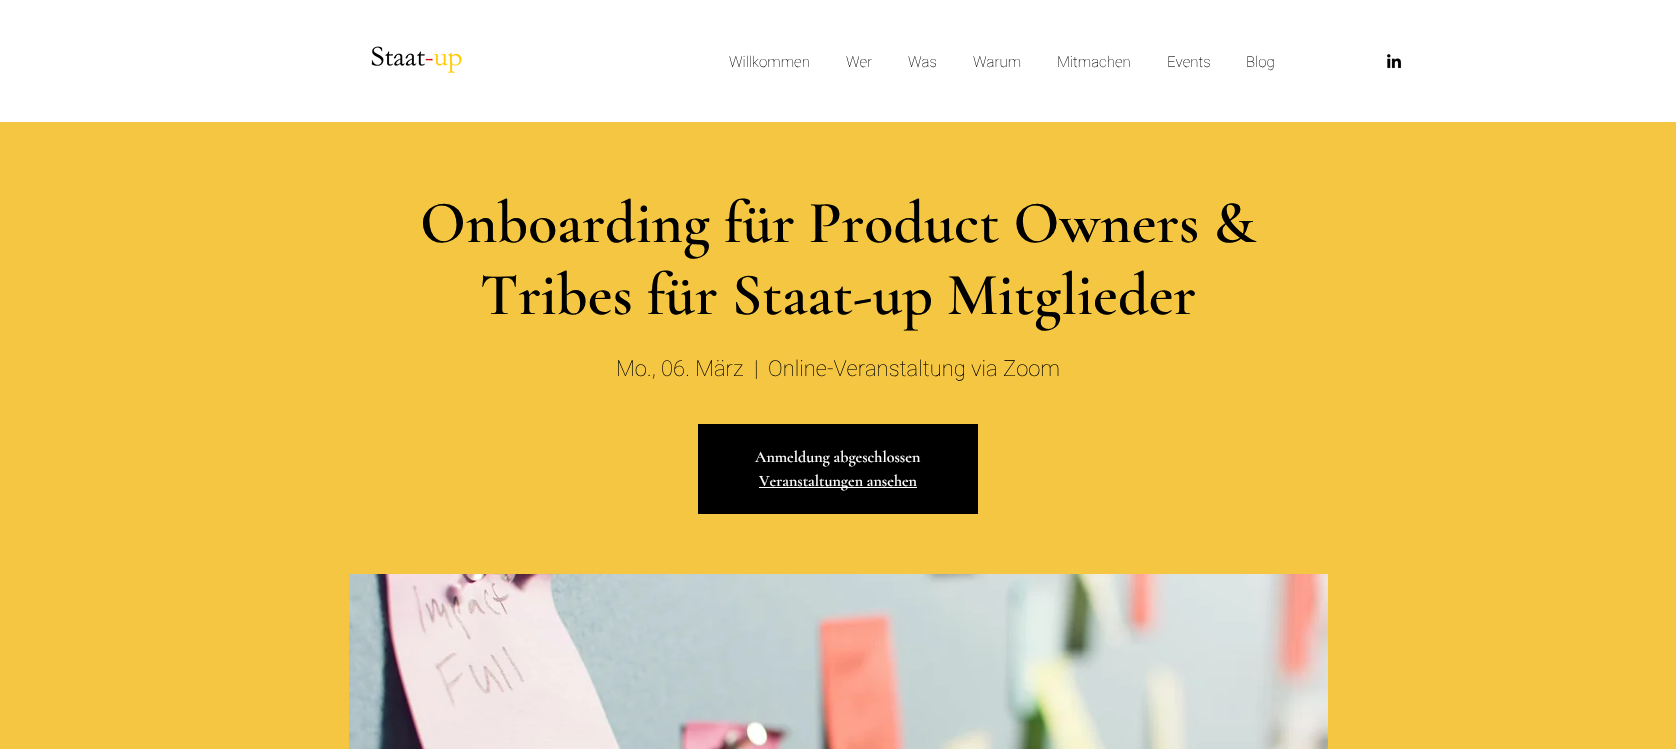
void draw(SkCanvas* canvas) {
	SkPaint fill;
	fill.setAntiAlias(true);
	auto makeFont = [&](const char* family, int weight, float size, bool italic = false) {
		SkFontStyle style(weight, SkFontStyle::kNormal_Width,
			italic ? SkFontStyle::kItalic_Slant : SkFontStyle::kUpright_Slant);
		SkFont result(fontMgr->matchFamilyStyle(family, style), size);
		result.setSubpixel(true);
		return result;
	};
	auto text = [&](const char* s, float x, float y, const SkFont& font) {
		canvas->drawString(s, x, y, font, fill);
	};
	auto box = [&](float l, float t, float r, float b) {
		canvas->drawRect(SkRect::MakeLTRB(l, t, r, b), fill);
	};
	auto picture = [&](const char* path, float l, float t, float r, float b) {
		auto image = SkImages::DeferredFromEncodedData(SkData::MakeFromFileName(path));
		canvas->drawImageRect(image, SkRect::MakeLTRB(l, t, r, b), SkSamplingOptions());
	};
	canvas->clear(0xFFFFFFFF);
	picture("image0.png", 371, 46, 462, 73);
	picture("image1.png", 1387, 54, 1402, 69);
	fill.setColor(0xFFF4C641);
	box(0, 122, 1676, 749);
	fill.setColor(0xFF000000);
	box(698, 424, 978, 514);
	fill.setColor(0xFFFFFFFF);
	box(759, 487, 917, 488);
	picture("image2.png", 349, 574, 1328, 749);
	auto font1 = makeFont("Roboto", 100, 15);
	fill.setColor(0xFF000000);
	text("Willkommen", 729, 67, font1);
	text("Wer", 846, 67, font1);
	text("Was", 908, 67, font1);
	text("Warum", 973, 67, font1);
	text("Mitmachen", 1057, 67, font1);
	text("Events", 1167, 67, font1);
	text("Blog", 1246, 67, font1);
	auto font2 = makeFont("Cormorant Garamond", 600, 60);
	text("Onboarding für Product Owners &", 420, 242, font2);
	text("Tribes für Staat-up Mitglieder", 480, 314, font2);
	auto font3 = makeFont("Roboto", 100, 22);
	text("Mo., 06. März", 616, 376, font3);
	text("|", 754, 376, font3);
	text("Online-Veranstaltung via Zoom", 768, 376, font3);
	auto font4 = makeFont("Cormorant Garamond", 600, 16);
	fill.setColor(0xFFFFFFFF);
	text("Anmeldung abgeschlossen", 755, 462, font4);
	text("Veranstaltungen ansehen", 759, 486, font4);
}
